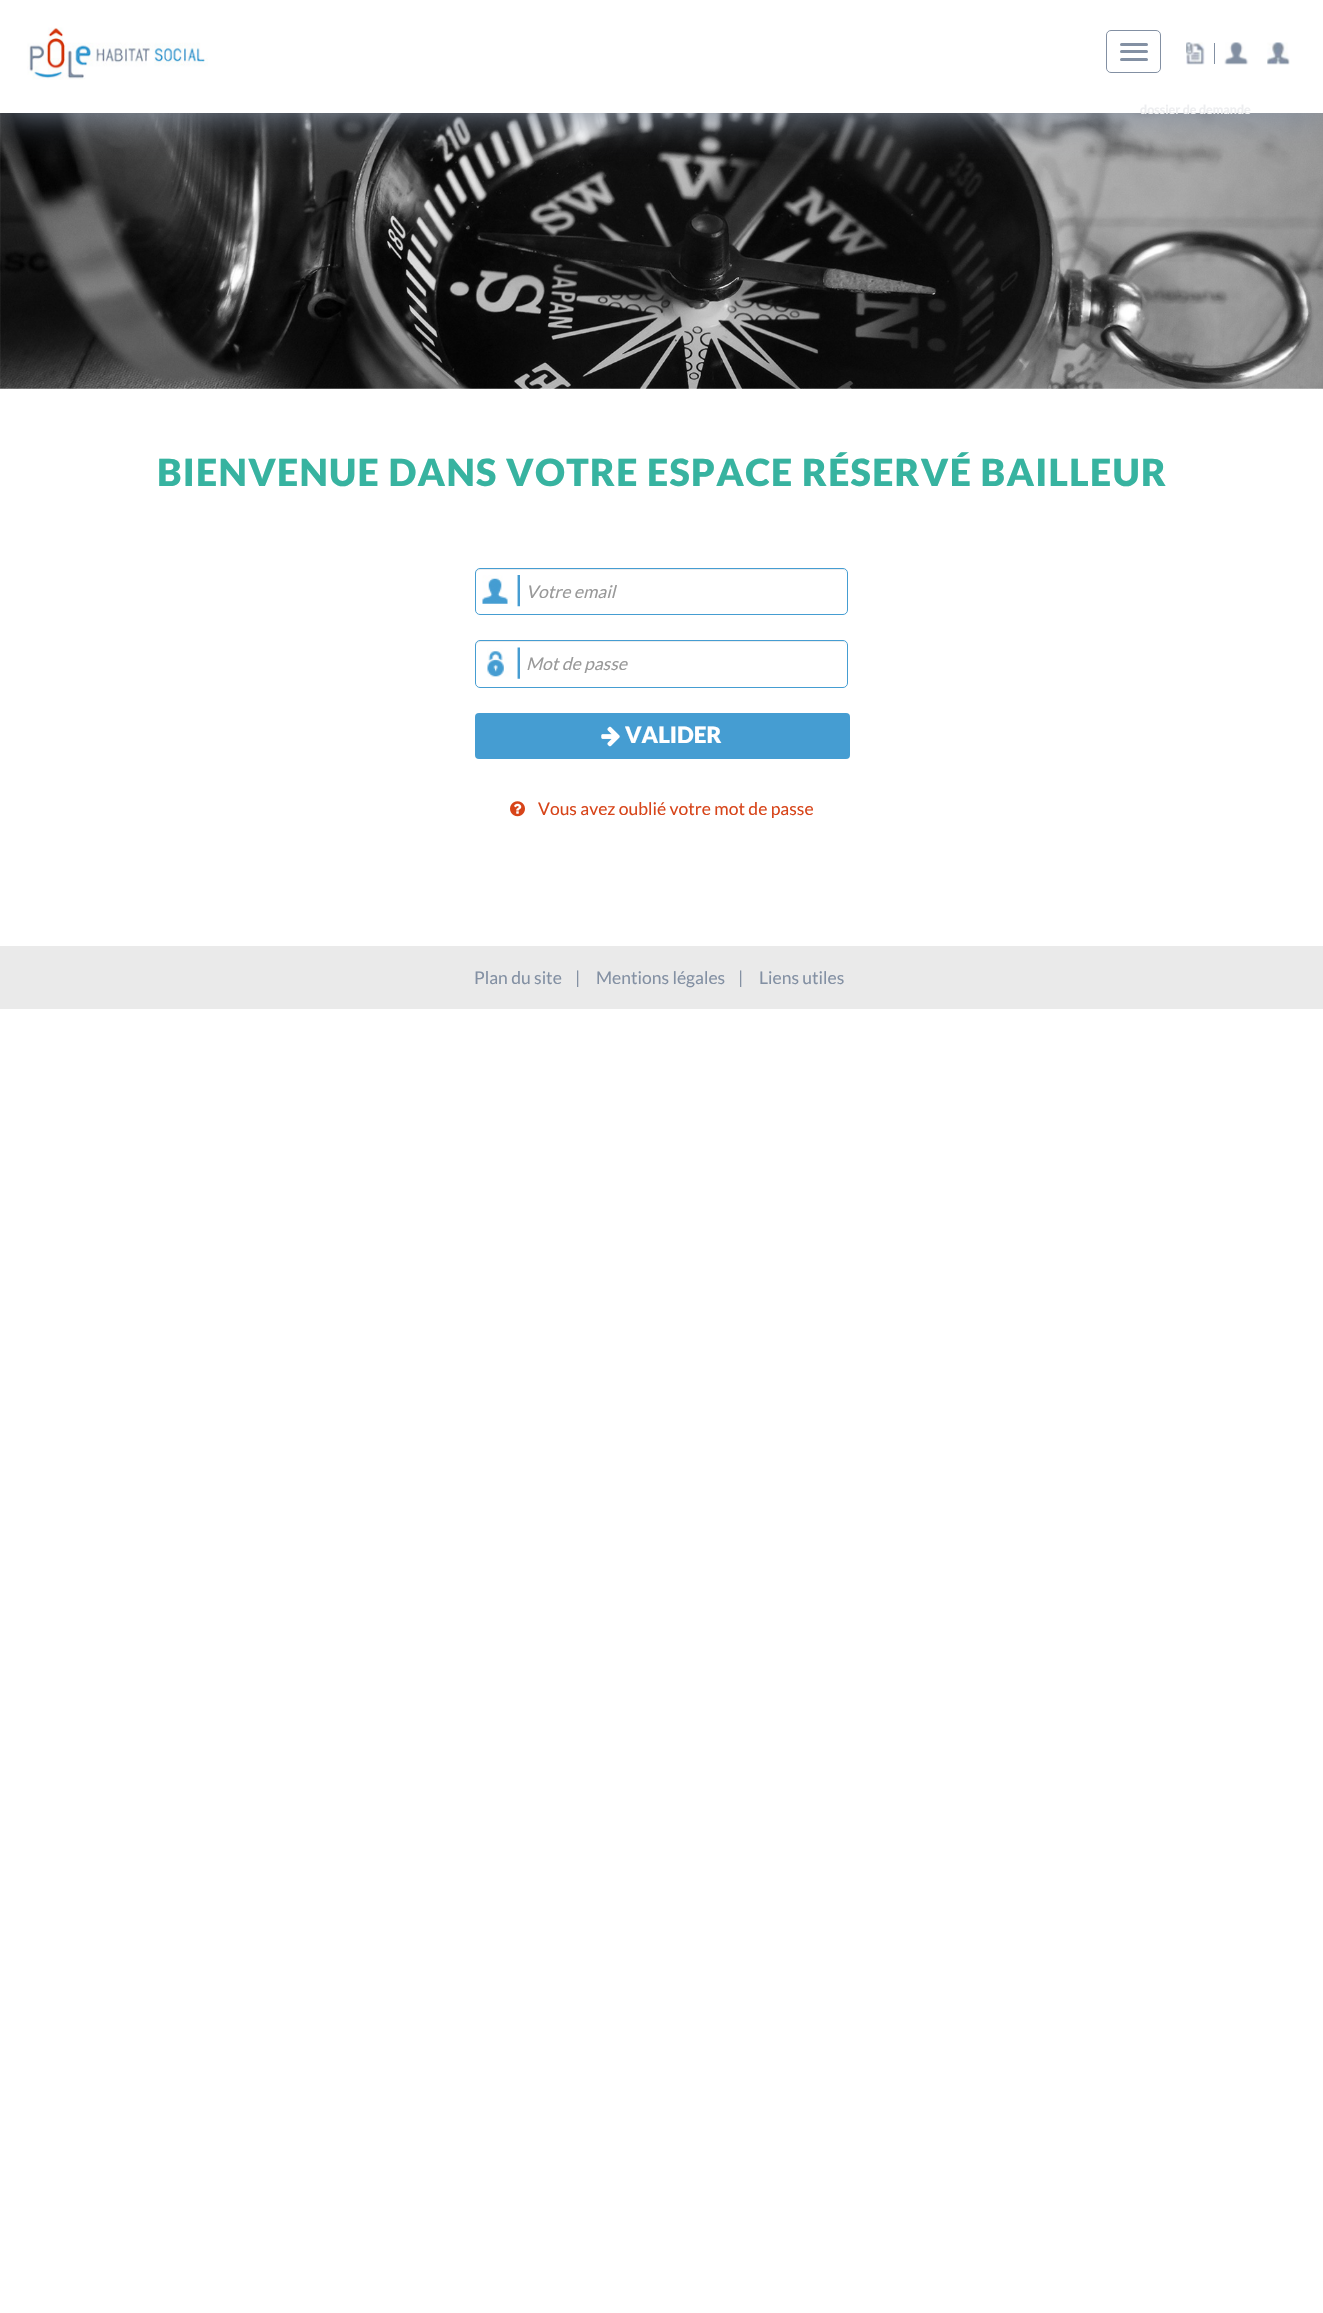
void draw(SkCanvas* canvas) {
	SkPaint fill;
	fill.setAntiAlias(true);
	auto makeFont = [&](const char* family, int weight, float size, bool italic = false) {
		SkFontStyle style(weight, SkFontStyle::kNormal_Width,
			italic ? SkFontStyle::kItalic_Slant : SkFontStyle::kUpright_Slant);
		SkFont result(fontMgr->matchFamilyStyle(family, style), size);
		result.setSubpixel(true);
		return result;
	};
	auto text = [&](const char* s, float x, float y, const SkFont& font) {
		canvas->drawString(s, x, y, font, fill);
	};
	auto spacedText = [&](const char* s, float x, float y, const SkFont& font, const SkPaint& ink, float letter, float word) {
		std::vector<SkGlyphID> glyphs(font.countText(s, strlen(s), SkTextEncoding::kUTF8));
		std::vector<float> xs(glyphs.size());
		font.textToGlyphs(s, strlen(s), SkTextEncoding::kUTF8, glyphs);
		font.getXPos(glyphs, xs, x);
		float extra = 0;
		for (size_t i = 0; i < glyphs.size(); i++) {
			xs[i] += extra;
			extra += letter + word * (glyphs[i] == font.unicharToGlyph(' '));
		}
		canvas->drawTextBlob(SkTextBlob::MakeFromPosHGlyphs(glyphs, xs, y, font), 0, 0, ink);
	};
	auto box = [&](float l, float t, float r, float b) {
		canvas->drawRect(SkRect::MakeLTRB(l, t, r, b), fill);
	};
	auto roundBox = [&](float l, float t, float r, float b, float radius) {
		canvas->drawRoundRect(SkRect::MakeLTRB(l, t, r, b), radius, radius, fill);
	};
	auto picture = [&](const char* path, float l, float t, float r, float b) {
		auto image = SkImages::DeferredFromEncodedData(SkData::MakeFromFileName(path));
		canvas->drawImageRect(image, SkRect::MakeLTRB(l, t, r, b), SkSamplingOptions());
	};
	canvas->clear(0xFFFFFFFF);
	picture("image4.png", 0, 113, 1323, 389);
	fill.setColor(0xFF8390A3);
	fill.setMaskFilter(SkMaskFilter::MakeBlur(kNormal_SkBlurStyle, 19));
	canvas->drawRect(SkRect::MakeLTRB(0, 0, 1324, 113), fill);
	fill.setMaskFilter(nullptr);
	fill.setColor(0xFFFFFFFF);
	box(0, 0, 1323, 113);
	picture("image0.png", 27, 27, 208, 80);
	fill.setStyle(SkPaint::kStroke_Style);
	fill.setStrokeWidth(1);
	fill.setColor(0xFF8390A3);
	canvas->drawRoundRect(SkRect::MakeLTRB(1106.5f, 30.5f, 1160.5f, 72.5f), 4.5f, 4.5f, fill);
	fill.setStyle(SkPaint::kFill_Style);
	roundBox(1120, 43, 1148, 46, 1.5f);
	roundBox(1120, 50, 1148, 53, 1.5f);
	roundBox(1120, 58, 1148, 61, 1.5f);
	picture("image1.png", 1224, 42, 1249, 65);
	picture("image2.png", 1267, 42, 1290, 65);
	box(1214, 43, 1215, 64);
	picture("image3.png", 1186, 42, 1205, 65);
	picture("image5.png", 482, 575, 520, 607);
	fill.setColor(0xFFECECEC);
	canvas->drawPath(SkPathBuilder().moveTo(480, 570).lineTo(844, 570).lineTo(846, 572).lineTo(846, 574).cubicTo(846, 571, 845, 569, 842, 569).lineTo(480, 569).cubicTo(477, 569, 476, 571, 476, 574).cubicTo(476, 572, 478, 570, 480, 570).close().detach(), fill);
	fill.setStyle(SkPaint::kStroke_Style);
	fill.setColor(0xFF459DD2);
	canvas->drawRoundRect(SkRect::MakeLTRB(475.5f, 568.5f, 847.5f, 614.5f), 4.5f, 4.5f, fill);
	picture("image6.png", 487, 647, 520, 679);
	fill.setStyle(SkPaint::kFill_Style);
	fill.setColor(0xFFECECEC);
	canvas->drawPath(SkPathBuilder().moveTo(480, 642).lineTo(844, 642).lineTo(846, 644).lineTo(846, 646).cubicTo(846, 643, 845, 641, 842, 641).lineTo(480, 641).cubicTo(477, 641, 476, 643, 476, 646).cubicTo(476, 644, 478, 642, 480, 642).close().detach(), fill);
	fill.setStyle(SkPaint::kStroke_Style);
	fill.setColor(0xFF459DD2);
	canvas->drawRoundRect(SkRect::MakeLTRB(475.5f, 640.5f, 847.5f, 687.5f), 4.5f, 4.5f, fill);
	fill.setStyle(SkPaint::kFill_Style);
	roundBox(475, 713, 850, 759, 4);
	picture("image7.png", 601, 726, 620, 747);
	picture("image8.png", 510, 801, 525, 817);
	fill.setColor(0xFFEAEAEA);
	box(0, 946, 1323, 1009);
	auto font1 = makeFont("Lato", 700, 12.5f);
	fill.setColor(0xFFEDEEF0);
	text("dossier de demande", 1140, 114, font1);
	auto font2 = makeFont("Lato", 900, 37.5f);
	fill.setColor(0xFF37B3A0);
	spacedText("BIENVENUE DANS VOTRE ESPACE RÉSERVÉ BAILLEUR", 157, 486, font2, fill, 1.25f, 0);
	auto font3 = makeFont("Lato", 400, 17.5f, true);
	fill.setColor(0xFF999999);
	text("Votre email", 526, 598, font3);
	text("Mot de passe", 526, 670, font3);
	auto font4 = makeFont("Lato", 900, 22.5f);
	fill.setColor(0xFFFFFFFF);
	text("VALIDER", 625, 743, font4);
	auto font5 = makeFont("Lato", 400, 17.5f);
	fill.setColor(0xFFD74419);
	text("Vous avez oublié votre mot de passe", 538, 815, font5);
	fill.setColor(0xFF8390A3);
	text("Plan du site", 474, 984, font5);
	text("|", 575, 984, font5);
	text("Mentions légales", 596, 984, font5);
	text("|", 738, 984, font5);
	text("Liens utiles", 759, 984, font5);
}
